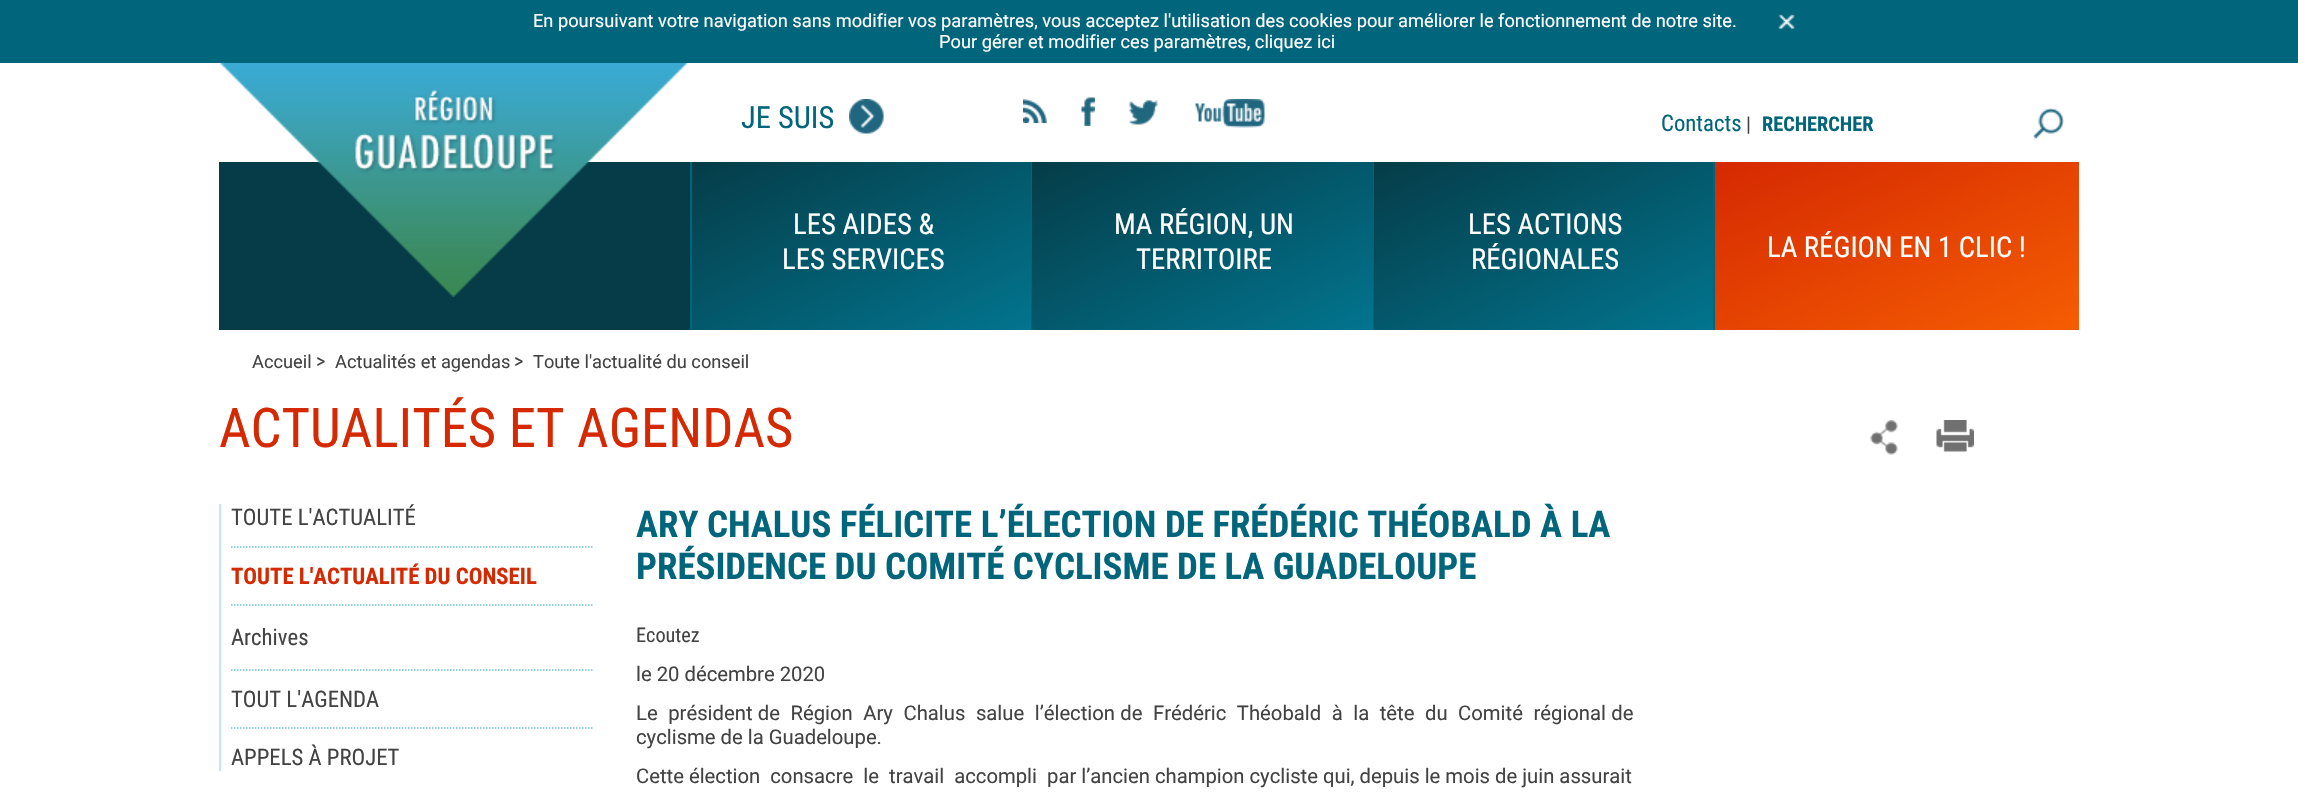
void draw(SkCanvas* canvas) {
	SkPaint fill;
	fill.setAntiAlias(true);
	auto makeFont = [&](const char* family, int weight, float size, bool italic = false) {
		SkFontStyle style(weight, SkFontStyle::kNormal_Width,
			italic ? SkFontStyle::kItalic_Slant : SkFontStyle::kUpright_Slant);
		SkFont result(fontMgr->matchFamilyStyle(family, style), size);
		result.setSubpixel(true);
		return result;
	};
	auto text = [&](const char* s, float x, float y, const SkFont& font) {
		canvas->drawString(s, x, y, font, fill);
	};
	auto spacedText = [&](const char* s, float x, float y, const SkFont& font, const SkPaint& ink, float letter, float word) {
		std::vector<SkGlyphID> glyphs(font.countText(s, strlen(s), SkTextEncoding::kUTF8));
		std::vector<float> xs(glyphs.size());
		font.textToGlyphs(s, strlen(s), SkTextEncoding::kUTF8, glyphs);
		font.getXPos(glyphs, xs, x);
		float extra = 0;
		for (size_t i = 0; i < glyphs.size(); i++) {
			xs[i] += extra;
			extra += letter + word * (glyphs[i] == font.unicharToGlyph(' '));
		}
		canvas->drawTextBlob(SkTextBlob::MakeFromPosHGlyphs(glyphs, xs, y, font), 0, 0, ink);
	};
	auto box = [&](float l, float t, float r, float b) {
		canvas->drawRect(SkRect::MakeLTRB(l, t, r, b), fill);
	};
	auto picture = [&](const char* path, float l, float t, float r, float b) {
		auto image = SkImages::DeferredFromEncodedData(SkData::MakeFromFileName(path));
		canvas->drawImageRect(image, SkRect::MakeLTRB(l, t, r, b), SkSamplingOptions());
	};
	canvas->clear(0xFFFFFFFF);
	fill.setColor(0xFF01657C);
	box(0, 0, 2298, 63);
	picture("image0.png", 1778, 14, 1795, 30);
	fill.setColor(0xFF053C48);
	box(219, 162, 690, 330);
	picture("image1.png", 220, 63, 687, 297);
	picture("image2.png", 849, 99, 884, 134);
	picture("image3.png", 1023, 99, 1047, 123);
	picture("image4.png", 1081, 97, 1095, 126);
	picture("image5.png", 1129, 100, 1158, 125);
	picture("image6.png", 1194, 99, 1265, 128);
	picture("image7.png", 2033, 108, 2064, 139);
	fill.setColor(0xFF01657C);
	box(690, 162, 692, 330);
	{
		const SkColor colors[] = {0xFF053C48, 0xFF02758F};
		const float stops[] = {0, 1};
		const SkPoint ends[] = {{797, 110}, {930, 382}};
		fill.setShader(SkGradientShader::MakeLinear(ends, colors, stops, 2, SkTileMode::kClamp));
		fill.setAlpha(255);
	}
	box(692, 162, 1031, 330);
	fill.setShader(nullptr);
	fill.setColor(0xFF01657C);
	box(1031, 162, 1032, 330);
	{
		const SkColor colors[] = {0xFF053C48, 0xFF02758F};
		const float stops[] = {0, 1};
		const SkPoint ends[] = {{1138, 110}, {1271, 382}};
		fill.setShader(SkGradientShader::MakeLinear(ends, colors, stops, 2, SkTileMode::kClamp));
		fill.setAlpha(255);
	}
	box(1032, 162, 1373, 330);
	fill.setShader(nullptr);
	fill.setColor(0xFF01657C);
	box(1373, 162, 1374, 330);
	{
		const SkColor colors[] = {0xFF053C48, 0xFF02758F};
		const float stops[] = {0, 1};
		const SkPoint ends[] = {{1479, 110}, {1612, 382}};
		fill.setShader(SkGradientShader::MakeLinear(ends, colors, stops, 2, SkTileMode::kClamp));
		fill.setAlpha(255);
	}
	box(1374, 162, 1713, 330);
	fill.setShader(nullptr);
	fill.setColor(0xFF01657C);
	box(1713, 162, 1715, 330);
	{
		const SkColor colors[] = {0xFFD52902, 0xFFF55D02};
		const float stops[] = {0, 1};
		const SkPoint ends[] = {{1833, 107}, {1961, 385}};
		fill.setShader(SkGradientShader::MakeLinear(ends, colors, stops, 2, SkTileMode::kClamp));
		fill.setAlpha(255);
	}
	box(1715, 162, 2079, 330);
	picture("image8.png", 1870, 420, 1898, 455);
	picture("image9.png", 1936, 420, 1974, 452);
	fill.setShader(nullptr);
	fill.setColor(0xFFC2E9EF);
	box(219, 504, 221, 771);
	fill.setStyle(SkPaint::kStroke_Style);
	fill.setStrokeWidth(1.5f);
	fill.setColor(0xFF66C8D5);
	fill.setPathEffect(SkDashPathEffect::Make({{1.5f, 1.5f}}, 0));
	canvas->drawPath(SkPathBuilder().moveTo(231, 547).lineTo(594, 547).detach(), fill);
	fill.setPathEffect(nullptr);
	fill.setPathEffect(SkDashPathEffect::Make({{1.5f, 1.5f}}, 0));
	canvas->drawPath(SkPathBuilder().moveTo(231, 605).lineTo(594, 605).detach(), fill);
	fill.setPathEffect(nullptr);
	fill.setPathEffect(SkDashPathEffect::Make({{1.5f, 1.5f}}, 0));
	canvas->drawPath(SkPathBuilder().moveTo(231, 670).lineTo(594, 670).detach(), fill);
	fill.setPathEffect(nullptr);
	fill.setPathEffect(SkDashPathEffect::Make({{1.5f, 1.5f}}, 0));
	canvas->drawPath(SkPathBuilder().moveTo(231, 728).lineTo(594, 728).detach(), fill);
	fill.setPathEffect(nullptr);
	auto font1 = makeFont("Roboto", 400, 18.23f);
	fill.setStyle(SkPaint::kFill_Style);
	fill.setColor(0xFFFFFFFF);
	text("En poursuivant votre navigation sans modifier vos paramètres, vous acceptez l'utilisation des cookies pour améliorer le fonctionnement de notre site.", 533, 27, font1);
	text("Pour gérer et modifier ces paramètres, cliquez ici", 939, 48, font1);
	auto font2 = makeFont("Roboto Condensed", 400, 30.5f);
	fill.setColor(0xFF01657C);
	text("JE SUIS", 741, 128, font2);
	auto font3 = makeFont("Roboto Condensed", 400, 22.75f);
	text("Contacts", 1661, 131, font3);
	auto font4 = makeFont("Roboto Condensed", 400, 20.25f);
	fill.setColor(0xFF434343);
	text("|", 1746, 131, font4);
	auto font5 = makeFont("Roboto Condensed", 700, 20.25f);
	fill.setColor(0xFF01657C);
	text("RECHERCHER", 1762, 131, font5);
	auto font6 = makeFont("Roboto Condensed", 400, 28.75f);
	fill.setColor(0xFFFFFFFF);
	text("LES AIDES &", 793, 234, font6);
	text("LES SERVICES", 782, 269, font6);
	text("MA RÉGION, UN", 1114, 234, font6);
	text("TERRITOIRE", 1136, 269, font6);
	text("LES ACTIONS", 1468, 234, font6);
	text("RÉGIONALES", 1471, 269, font6);
	text("LA RÉGION EN 1 CLIC !", 1767, 257, font6);
	fill.setColor(0xFF434343);
	text("Accueil", 252, 368, font1);
	text(">", 316, 368, font4);
	text("Actualités et agendas", 335, 368, font1);
	text(">", 514, 368, font4);
	text("Toute l'actualité du conseil", 533, 368, font1);
	auto font7 = makeFont("Roboto Condensed", 400, 54.75f);
	fill.setColor(0xFFD52902);
	text("ACTUALITÉS ET AGENDAS", 219, 447, font7);
	fill.setColor(0xFF434343);
	text("TOUTE L'ACTUALITÉ", 231, 525, font3);
	auto font8 = makeFont("Roboto Condensed", 700, 22.75f);
	fill.setColor(0xFFD52902);
	text("TOUTE L'ACTUALITÉ DU CONSEIL", 231, 584, font8);
	fill.setColor(0xFF434343);
	text("Archives", 231, 645, font3);
	text("TOUT L'AGENDA", 231, 707, font3);
	text("APPELS À PROJET", 231, 765, font3);
	auto font9 = makeFont("Roboto Condensed", 700, 36.9f);
	fill.setColor(0xFF01657C);
	text("ARY CHALUS FÉLICITE L’ÉLECTION DE FRÉDÉRIC THÉOBALD À LA", 636, 537, font9);
	text("PRÉSIDENCE DU COMITÉ CYCLISME DE LA GUADELOUPE", 636, 579, font9);
	fill.setColor(0xFF434343);
	text("Ecoutez", 636, 642, font4);
	auto font10 = makeFont("Roboto", 400, 20.25f);
	text("le 20 décembre 2020", 636, 681, font10);
	spacedText("Le  président de  Région  Ary  Chalus  salue  l’élection de  Frédéric  Théobald  à  la  tête  du  Comité  régional de", 636, 720, font10, fill, 0, 0.25f);
	text("cyclisme de la Guadeloupe.", 636, 744, font10);
	text("Cette élection  consacre  le  travail  accompli  par l’ancien champion cycliste qui, depuis le mois de juin assurait", 636, 783, font10);
}
